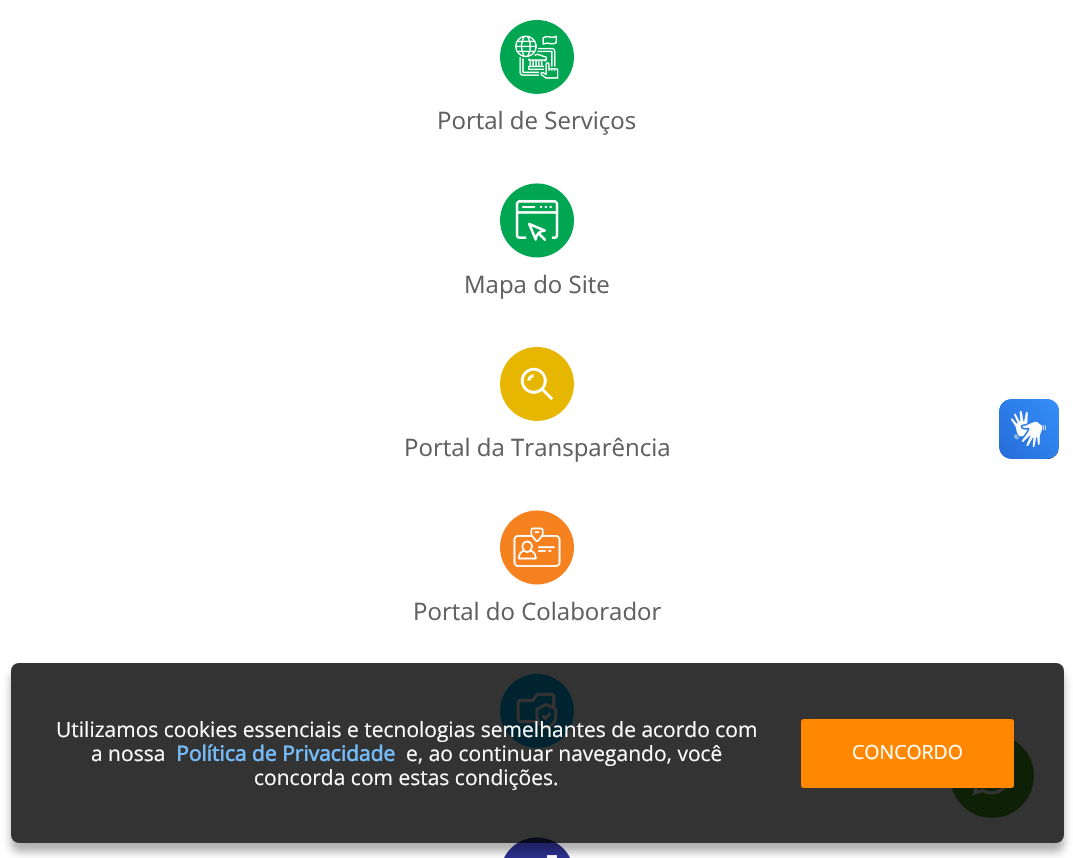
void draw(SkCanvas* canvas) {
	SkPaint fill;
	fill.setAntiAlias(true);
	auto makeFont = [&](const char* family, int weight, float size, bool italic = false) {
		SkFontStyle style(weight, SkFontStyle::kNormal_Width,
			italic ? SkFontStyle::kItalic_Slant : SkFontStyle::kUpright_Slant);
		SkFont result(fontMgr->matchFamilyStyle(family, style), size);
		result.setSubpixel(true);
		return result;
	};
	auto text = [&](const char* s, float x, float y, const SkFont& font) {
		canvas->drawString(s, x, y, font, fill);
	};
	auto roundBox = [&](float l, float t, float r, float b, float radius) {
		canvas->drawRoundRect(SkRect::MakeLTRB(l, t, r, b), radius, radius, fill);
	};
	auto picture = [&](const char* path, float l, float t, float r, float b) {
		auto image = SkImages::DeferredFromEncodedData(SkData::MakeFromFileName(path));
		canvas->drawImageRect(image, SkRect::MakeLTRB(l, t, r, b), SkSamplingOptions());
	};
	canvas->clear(0xFFFFFFFF);
	picture("image0.png", 499, 19, 575, 94);
	picture("image1.png", 499, 183, 575, 258);
	picture("image2.png", 499, 346, 575, 421);
	picture("image3.png", 499, 510, 575, 585);
	picture("image4.png", 499, 673, 575, 748);
	picture("image5.png", 504, 837, 570, 858);
	picture("image6.png", 999, 399, 1059, 459);
	picture("image7.png", 999, 399, 1059, 459);
	fill.setColor(0xFF45A51D);
	canvas->drawCircle(992, 776, 43.5f, fill);
	fill.setStyle(SkPaint::kStroke_Style);
	fill.setStrokeWidth(3);
	fill.setColor(0xFFFFFFFF);
	canvas->drawCircle(992, 776, 43.5f, fill);
	picture("image8.png", 972, 788, 1006, 796);
	canvas->save();
	canvas->clipPath(SkPathBuilder(SkPathFillType::kEvenOdd).moveTo(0, 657).lineTo(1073, 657).lineTo(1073, 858).lineTo(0, 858).close().moveTo(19, 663).lineTo(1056, 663).cubicTo(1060.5f, 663, 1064, 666.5f, 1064, 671).lineTo(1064, 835).cubicTo(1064, 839.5f, 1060.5f, 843, 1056, 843).lineTo(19, 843).cubicTo(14.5f, 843, 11, 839.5f, 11, 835).lineTo(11, 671).cubicTo(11, 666.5f, 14.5f, 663, 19, 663).close().detach(), true);
	fill.setStyle(SkPaint::kFill_Style);
	fill.setColor(0x4F000000);
	fill.setMaskFilter(SkMaskFilter::MakeBlur(kNormal_SkBlurStyle, 4.5f));
	canvas->drawRoundRect(SkRect::MakeLTRB(11, 672, 1064, 852), 8, 8, fill);
	fill.setMaskFilter(nullptr);
	canvas->restore();
	fill.setColor(0xCC000000);
	roundBox(11, 663, 1064, 843, 8);
	fill.setColor(0xFFFF8800);
	roundBox(801, 719, 1014, 788, 3);
	auto font1 = makeFont("Open Sans", 400, 24);
	fill.setColor(0xFF606060);
	text("Portal de Serviços", 437, 129, font1);
	text("Mapa do Site", 464, 293, font1);
	text("Portal da Transparência", 404, 456, font1);
	text("Portal do Colaborador", 413, 620, font1);
	auto font2 = makeFont("Open Sans", 400, 21);
	fill.setColor(0xFFFFFFFF);
	text("Utilizamos cookies essenciais e tecnologias semelhantes de acordo com", 56, 737, font2);
	text("a nossa", 91, 761, font2);
	auto font3 = makeFont("Open Sans", 700, 21);
	fill.setColor(0xFF74BBF7);
	text("Política de Privacidade", 176, 761, font3);
	fill.setColor(0xFFFFFFFF);
	text("e, ao continuar navegando, você", 406, 761, font2);
	text("concorda com estas condições.", 254, 785, font2);
	auto font4 = makeFont("Open Sans", 400, 19.5f);
	text("CONCORDO", 852, 759, font4);
}
